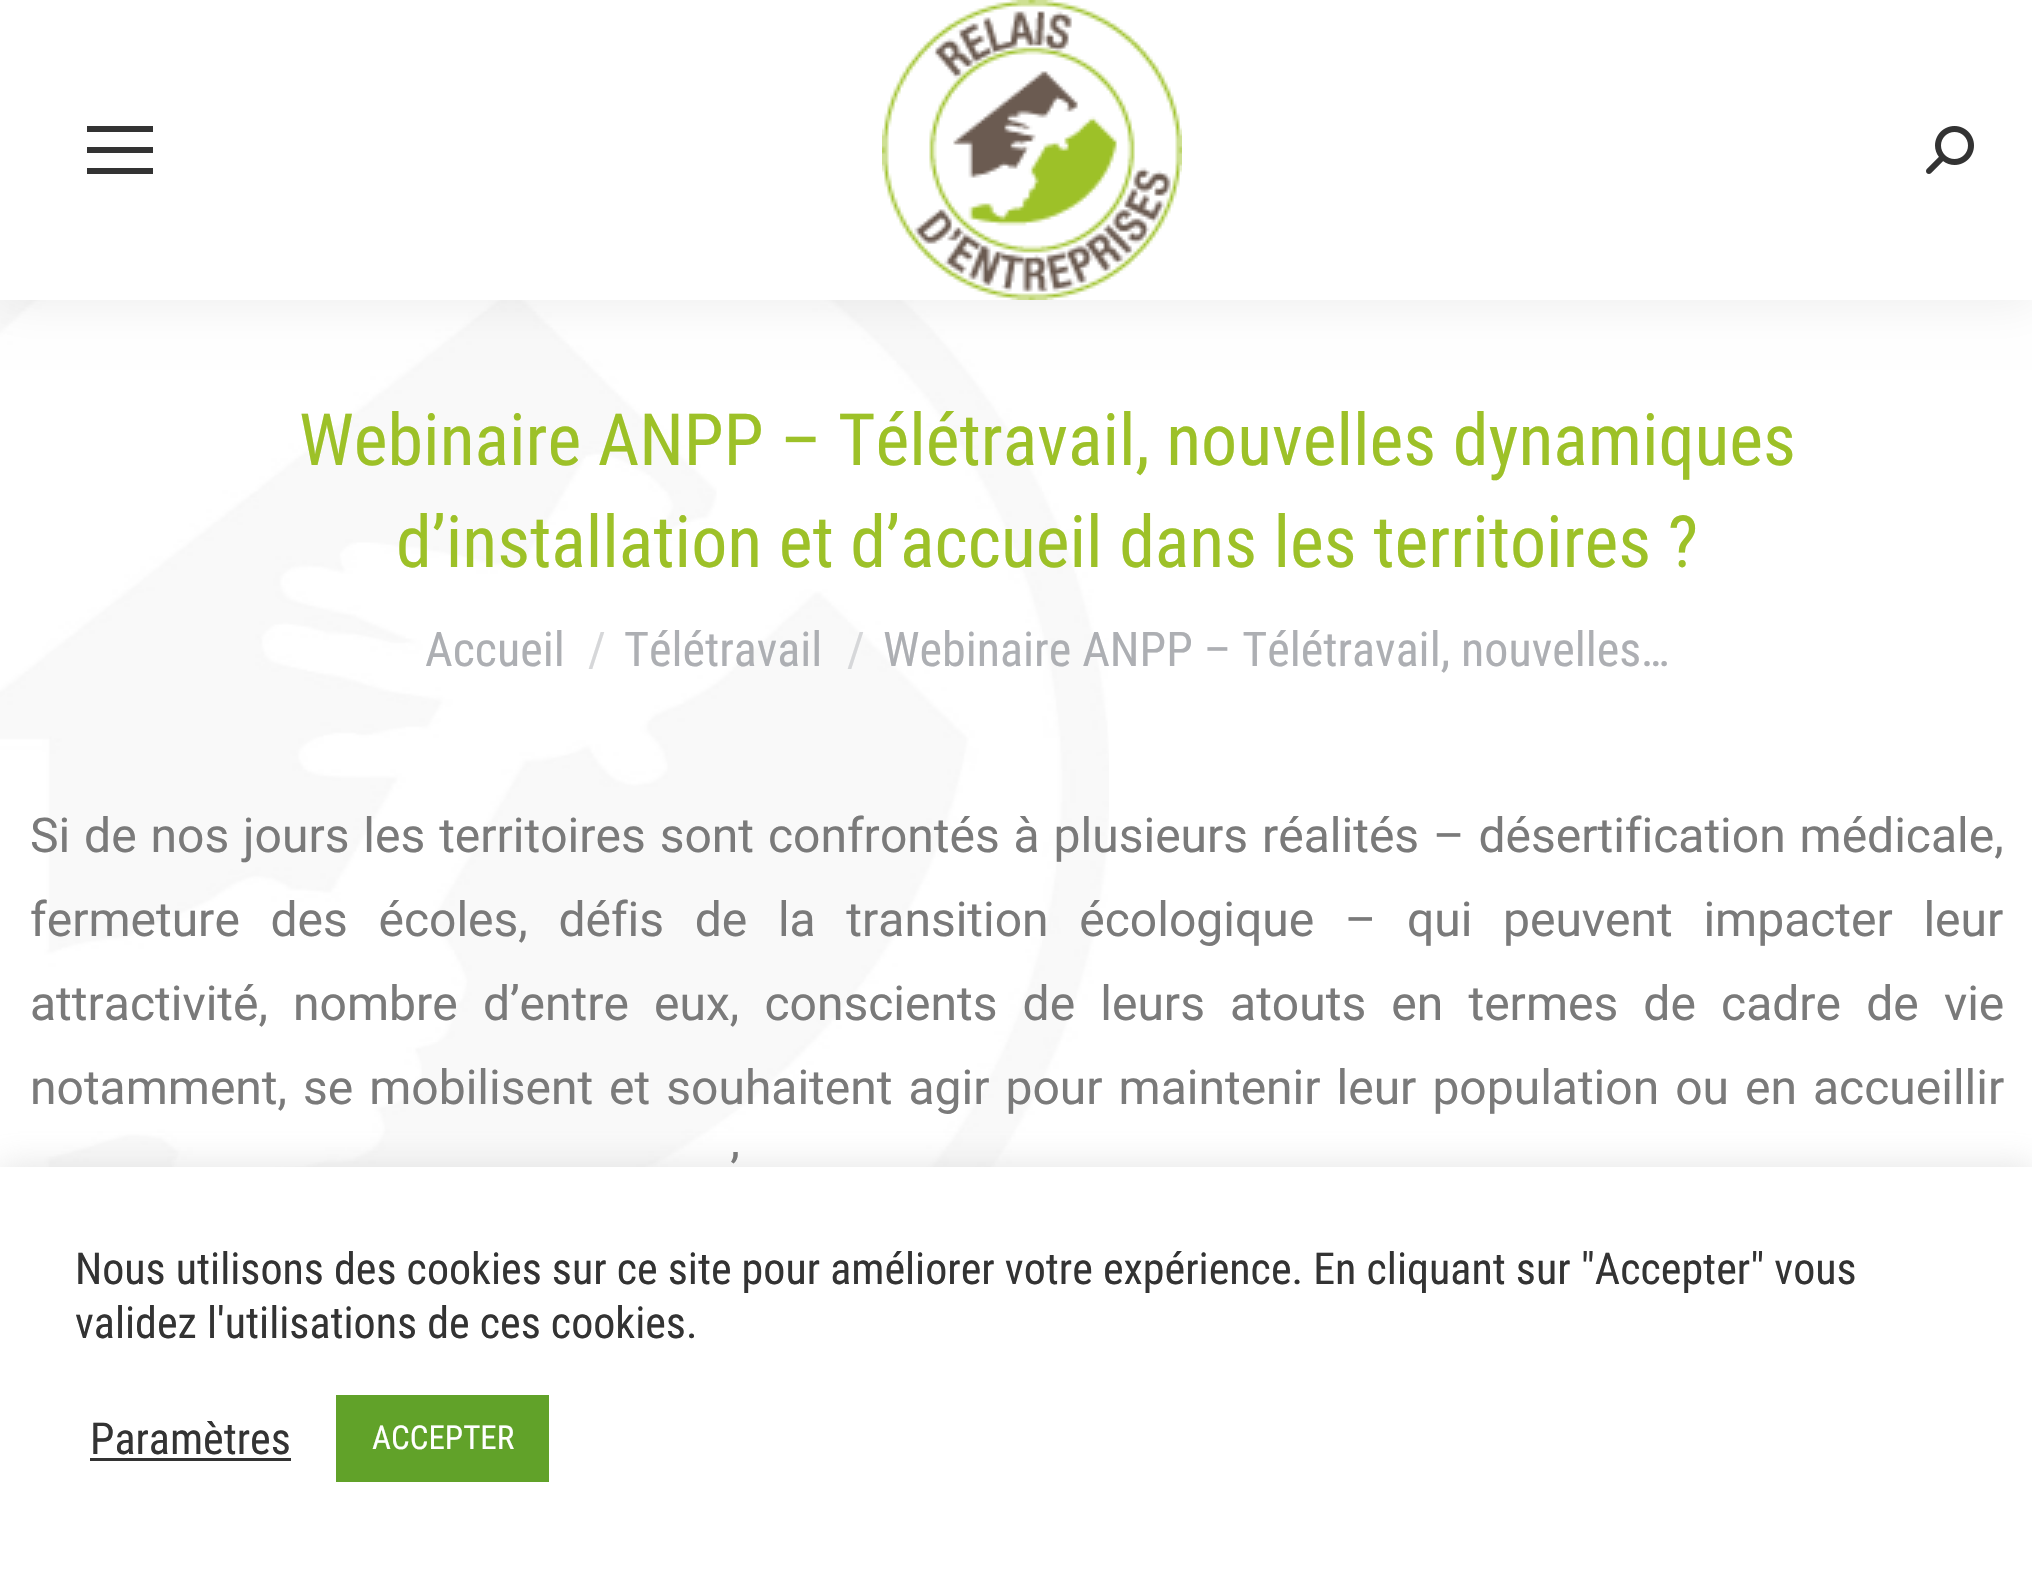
void draw(SkCanvas* canvas) {
	SkPaint fill;
	fill.setAntiAlias(true);
	auto makeFont = [&](const char* family, int weight, float size, bool italic = false) {
		SkFontStyle style(weight, SkFontStyle::kNormal_Width,
			italic ? SkFontStyle::kItalic_Slant : SkFontStyle::kUpright_Slant);
		SkFont result(fontMgr->matchFamilyStyle(family, style), size);
		result.setSubpixel(true);
		return result;
	};
	auto text = [&](const char* s, float x, float y, const SkFont& font) {
		canvas->drawString(s, x, y, font, fill);
	};
	auto spacedText = [&](const char* s, float x, float y, const SkFont& font, const SkPaint& ink, float letter, float word) {
		std::vector<SkGlyphID> glyphs(font.countText(s, strlen(s), SkTextEncoding::kUTF8));
		std::vector<float> xs(glyphs.size());
		font.textToGlyphs(s, strlen(s), SkTextEncoding::kUTF8, glyphs);
		font.getXPos(glyphs, xs, x);
		float extra = 0;
		for (size_t i = 0; i < glyphs.size(); i++) {
			xs[i] += extra;
			extra += letter + word * (glyphs[i] == font.unicharToGlyph(' '));
		}
		canvas->drawTextBlob(SkTextBlob::MakeFromPosHGlyphs(glyphs, xs, y, font), 0, 0, ink);
	};
	auto box = [&](float l, float t, float r, float b) {
		canvas->drawRect(SkRect::MakeLTRB(l, t, r, b), fill);
	};
	auto picture = [&](const char* path, float l, float t, float r, float b) {
		auto image = SkImages::DeferredFromEncodedData(SkData::MakeFromFileName(path));
		canvas->drawImageRect(image, SkRect::MakeLTRB(l, t, r, b), SkSamplingOptions());
	};
	canvas->clear(0xFFFFFFFF);
	picture("image2.png", 0, 300, 1109, 1167);
	fill.setColor(0x12000000);
	fill.setMaskFilter(SkMaskFilter::MakeBlur(kNormal_SkBlurStyle, 22.5f));
	canvas->drawRect(SkRect::MakeLTRB(-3, -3, 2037, 303), fill);
	fill.setMaskFilter(nullptr);
	fill.setColor(0xFFFFFFFF);
	box(0, 0, 2032, 300);
	fill.setColor(0xFF333333);
	box(87, 126, 153, 132);
	box(87, 147, 153, 153);
	box(87, 168, 153, 174);
	picture("image0.png", 882, 0, 1182, 300);
	picture("image1.png", 1926, 126, 1974, 174);
	fill.setColor(0x4DACABAB);
	fill.setMaskFilter(SkMaskFilter::MakeBlur(kNormal_SkBlurStyle, 15));
	canvas->drawRect(SkRect::MakeLTRB(0, 1164, 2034, 1569), fill);
	fill.setMaskFilter(nullptr);
	fill.setColor(0xFFFFFFFF);
	box(0, 1167, 2032, 1570);
	fill.setColor(0xFF333333);
	box(90, 1458, 291, 1461);
	fill.setColor(0xFF61A229);
	box(336, 1395, 549, 1482);
	auto font1 = makeFont("Roboto Condensed", 400, 72);
	fill.setColor(0xFF9DC128);
	text("Webinaire ANPP – Télétravail, nouvelles dynamiques", 299, 465, font1);
	text("d’installation et d’accueil dans les territoires ?", 396, 567, font1);
	auto font2 = makeFont("Roboto Condensed", 400, 48);
	fill.setColor(0xFFADAFB3);
	text("Accueil", 425, 666, font2);
	fill.setColor(0xFFD6D7D9);
	text("/", 588, 666, font2);
	fill.setColor(0xFFADAFB3);
	text("Télétravail", 624, 666, font2);
	fill.setColor(0xFFD6D7D9);
	text("/", 847, 666, font2);
	fill.setColor(0xFFADAFB3);
	text("Webinaire ANPP – Télétravail, nouvelles…", 883, 666, font2);
	auto font3 = makeFont("Roboto", 400, 48);
	fill.setColor(0xFF7A7A7A);
	spacedText("Si de nos jours les territoires sont confrontés à plusieurs réalités – désertification médicale,", 30, 852, font3, fill, 0, 2);
	spacedText("fermeture des écoles, défis de la transition écologique – qui peuvent impacter leur", 30, 936, font3, fill, 0, 18.75f);
	spacedText("attractivité, nombre d’entre eux, conscients de leurs atouts en termes de cadre de vie", 30, 1020, font3, fill, 0, 13.25f);
	spacedText("notamment, se mobilisent et souhaitent agir pour maintenir leur population ou en accueillir", 30, 1104, font3, fill, 0, 4.1f);
	spacedText("’", 730, 1188, font3, fill, 0, 1);
	auto font4 = makeFont("Roboto Condensed", 400, 44);
	fill.setColor(0xFF333333);
	text("Nous utilisons des cookies sur ce site pour améliorer votre expérience. En cliquant sur \"Accepter\" vous", 75, 1284, font4);
	text("validez l'utilisations de ces cookies.", 75, 1338, font4);
	text("Paramètres", 90, 1454, font4);
	auto font5 = makeFont("Roboto Condensed", 400, 33);
	fill.setColor(0xFFFFFFFF);
	text("ACCEPTER", 372, 1449, font5);
}
